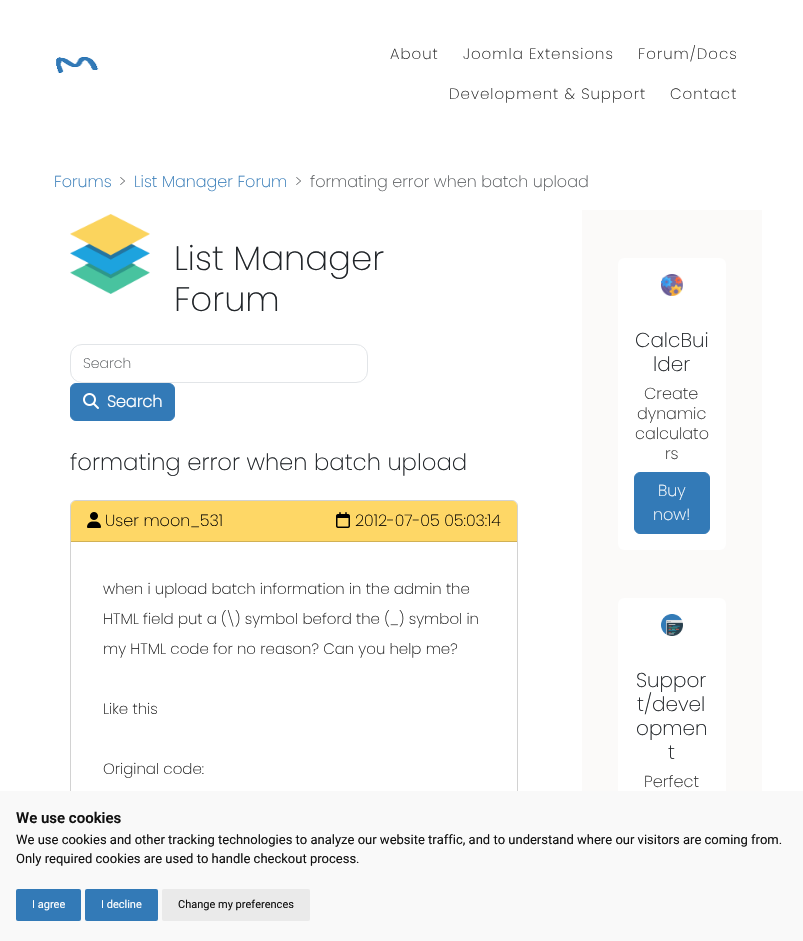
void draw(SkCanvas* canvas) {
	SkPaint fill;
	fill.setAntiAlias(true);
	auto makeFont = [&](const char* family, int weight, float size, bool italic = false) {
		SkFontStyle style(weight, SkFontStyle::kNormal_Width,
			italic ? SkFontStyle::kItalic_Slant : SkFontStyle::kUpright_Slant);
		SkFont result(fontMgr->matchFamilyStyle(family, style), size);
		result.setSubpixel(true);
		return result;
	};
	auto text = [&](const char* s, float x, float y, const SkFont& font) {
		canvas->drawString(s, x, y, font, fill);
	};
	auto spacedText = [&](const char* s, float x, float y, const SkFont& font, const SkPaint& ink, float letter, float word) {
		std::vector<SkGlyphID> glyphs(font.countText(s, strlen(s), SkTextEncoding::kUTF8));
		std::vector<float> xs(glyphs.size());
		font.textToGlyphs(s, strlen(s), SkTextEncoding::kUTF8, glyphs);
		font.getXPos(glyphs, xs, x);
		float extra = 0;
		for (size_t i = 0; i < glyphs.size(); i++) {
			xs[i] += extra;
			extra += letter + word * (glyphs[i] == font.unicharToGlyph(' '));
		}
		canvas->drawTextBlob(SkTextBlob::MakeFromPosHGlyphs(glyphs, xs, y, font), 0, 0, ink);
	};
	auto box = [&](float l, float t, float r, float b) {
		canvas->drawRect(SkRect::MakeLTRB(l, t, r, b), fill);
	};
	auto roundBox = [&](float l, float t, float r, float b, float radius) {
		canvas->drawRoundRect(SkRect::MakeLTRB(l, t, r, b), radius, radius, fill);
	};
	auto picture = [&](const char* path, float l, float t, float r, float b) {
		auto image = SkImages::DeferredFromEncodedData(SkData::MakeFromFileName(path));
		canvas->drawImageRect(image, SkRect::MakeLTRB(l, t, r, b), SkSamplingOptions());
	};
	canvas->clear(0xFFFFFFFF);
	picture("image0.png", 56, 57, 99, 73);
	picture("image1.png", 70, 214, 150, 294);
	fill.setStyle(SkPaint::kStroke_Style);
	fill.setStrokeWidth(1);
	fill.setColor(0xFFE2E5E8);
	canvas->drawRoundRect(SkRect::MakeLTRB(70.5f, 344.5f, 367.5f, 382.5f), 11.5f, 11.5f, fill);
	fill.setStyle(SkPaint::kFill_Style);
	fill.setColor(0xFF337AB7);
	canvas->drawRoundRect(SkRect::MakeLTRB(70.5f, 383.5f, 174.5f, 420.5f), 5.5f, 5.5f, fill);
	fill.setStyle(SkPaint::kStroke_Style);
	canvas->drawRoundRect(SkRect::MakeLTRB(70.5f, 383.5f, 174.5f, 420.5f), 5.5f, 5.5f, fill);
	picture("image2.png", 83, 393, 99, 409);
	fill.setColor(0xFFD2D2D2);
	canvas->drawRoundRect(SkRect::MakeLTRB(70.5f, 500.5f, 517.5f, 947.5f), 5.5f, 5.5f, fill);
	fill.setStyle(SkPaint::kFill_Style);
	fill.setColor(0xFFFED766);
	canvas->drawPath(SkPathBuilder().moveTo(76, 501).lineTo(512, 501).cubicTo(515, 501, 517, 503, 517, 506).lineTo(517, 542).lineTo(71, 542).lineTo(71, 506).cubicTo(71, 503, 73, 501, 76, 501).close().detach(), fill);
	fill.setColor(0xFFD1B154);
	box(71, 541, 517, 542);
	picture("image3.png", 87, 512, 101, 528);
	picture("image4.png", 336, 512, 350, 528);
	fill.setColor(0xFFFBFAF9);
	box(582, 210, 762, 791);
	fill.setColor(0xFFFFFFFF);
	roundBox(618, 258, 726, 550, 6);
	picture("image5.png", 661, 274, 683, 296);
	fill.setColor(0xFF337AB7);
	canvas->drawRoundRect(SkRect::MakeLTRB(634.5f, 472.5f, 709.5f, 533.5f), 5.5f, 5.5f, fill);
	fill.setStyle(SkPaint::kStroke_Style);
	canvas->drawRoundRect(SkRect::MakeLTRB(634.5f, 472.5f, 709.5f, 533.5f), 5.5f, 5.5f, fill);
	fill.setStyle(SkPaint::kFill_Style);
	fill.setColor(0xFFFFFFFF);
	roundBox(618, 598, 726, 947, 6);
	picture("image6.png", 661, 614, 683, 636);
	fill.setColor(0xFFF9F9F9);
	box(0, 791, 803, 941);
	fill.setColor(0xFF337AB7);
	roundBox(16, 889, 81, 921, 2);
	roundBox(85, 889, 158, 921, 2);
	fill.setColor(0xFFEAEAEA);
	roundBox(162, 889, 310, 921, 2);
	auto font1 = makeFont("Poppins", 300, 15);
	fill.setColor(0xFF2A2A2A);
	spacedText("About", 390, 59, font1, fill, 1, 0);
	spacedText("Joomla Extensions", 463, 59, font1, fill, 1, 0);
	spacedText("Forum/Docs", 638, 59, font1, fill, 1, 0);
	spacedText("Development & Support", 449, 99, font1, fill, 1, 0);
	spacedText("Contact", 670, 99, font1, fill, 1, 0);
	auto font2 = makeFont("Poppins", 300, 16);
	fill.setColor(0xFF337AB7);
	text("Forums", 54, 187, font2);
	fill.setColor(0xFF595C5F);
	text(">", 119, 187, font2);
	fill.setColor(0xFF337AB7);
	text("List Manager Forum", 134, 187, font2);
	fill.setColor(0xFF595C5F);
	text(">", 295, 187, font2);
	text("formating error when batch upload", 310, 187, font2);
	auto font3 = makeFont("Poppins", 300, 34);
	fill.setColor(0xFF212529);
	text("List Manager", 174, 270, font3);
	text("Forum", 174, 311, font3);
	auto font4 = makeFont("Poppins", 300, 14);
	fill.setColor(0xFF595C5F);
	text("Search", 83, 368, font4);
	auto font5 = makeFont("Poppins", 700, 16);
	fill.setColor(0xFFFFFFFF);
	text("Search", 107, 407, font5);
	auto font6 = makeFont("Poppins", 300, 22.8f);
	fill.setColor(0xFF212529);
	text("formating error when batch upload", 70, 470, font6);
	fill.setColor(0xFF000000);
	text("User moon_531", 105, 526, font2);
	text("2012-07-05 05:03:14", 355, 526, font2);
	fill.setColor(0xFF222222);
	text("when i upload batch information in the admin the", 103, 594, font1);
	text("HTML field put a (\\) symbol beford the (_) symbol in", 103, 624, font1);
	text("my HTML code for no reason? Can you help me?", 103, 654, font1);
	text("Like this", 103, 714, font1);
	text("Original code:", 103, 774, font1);
	auto font7 = makeFont("Poppins", 300, 20);
	fill.setColor(0xFF212529);
	text("CalcBui", 635, 347, font7);
	text("lder", 653, 371, font7);
	fill.setColor(0xFF333333);
	text("Create", 644, 399, font2);
	text("dynamic", 637, 419, font2);
	text("calculato", 635, 439, font2);
	text("rs", 665, 459, font2);
	fill.setColor(0xFFFFFFFF);
	text("Buy", 658, 496, font2);
	text("now!", 653, 520, font2);
	fill.setColor(0xFF212529);
	text("Suppor", 636, 687, font7);
	text("t/devel", 637, 711, font7);
	text("opmen", 636, 735, font7);
	text("t", 668, 759, font7);
	fill.setColor(0xFF333333);
	text("Perfect", 644, 787, font2);
	auto font8 = makeFont("Roboto", 600, 15);
	fill.setColor(0xFF111111);
	text("We use cookies", 16, 823, font8);
	auto font9 = makeFont("Roboto", 400, 13);
	text("We use cookies and other tracking technologies to analyze our website traffic, and to understand where our visitors are coming from.", 16, 844, font9);
	text("Only required cookies are used to handle checkout process.", 16, 863, font9);
	auto font10 = makeFont("Roboto", 400, 11);
	fill.setColor(0xFFFFFFFF);
	text("I agree", 32, 908, font10);
	text("I decline", 101, 908, font10);
	fill.setColor(0xFF111111);
	text("Change my preferences", 178, 908, font10);
}
